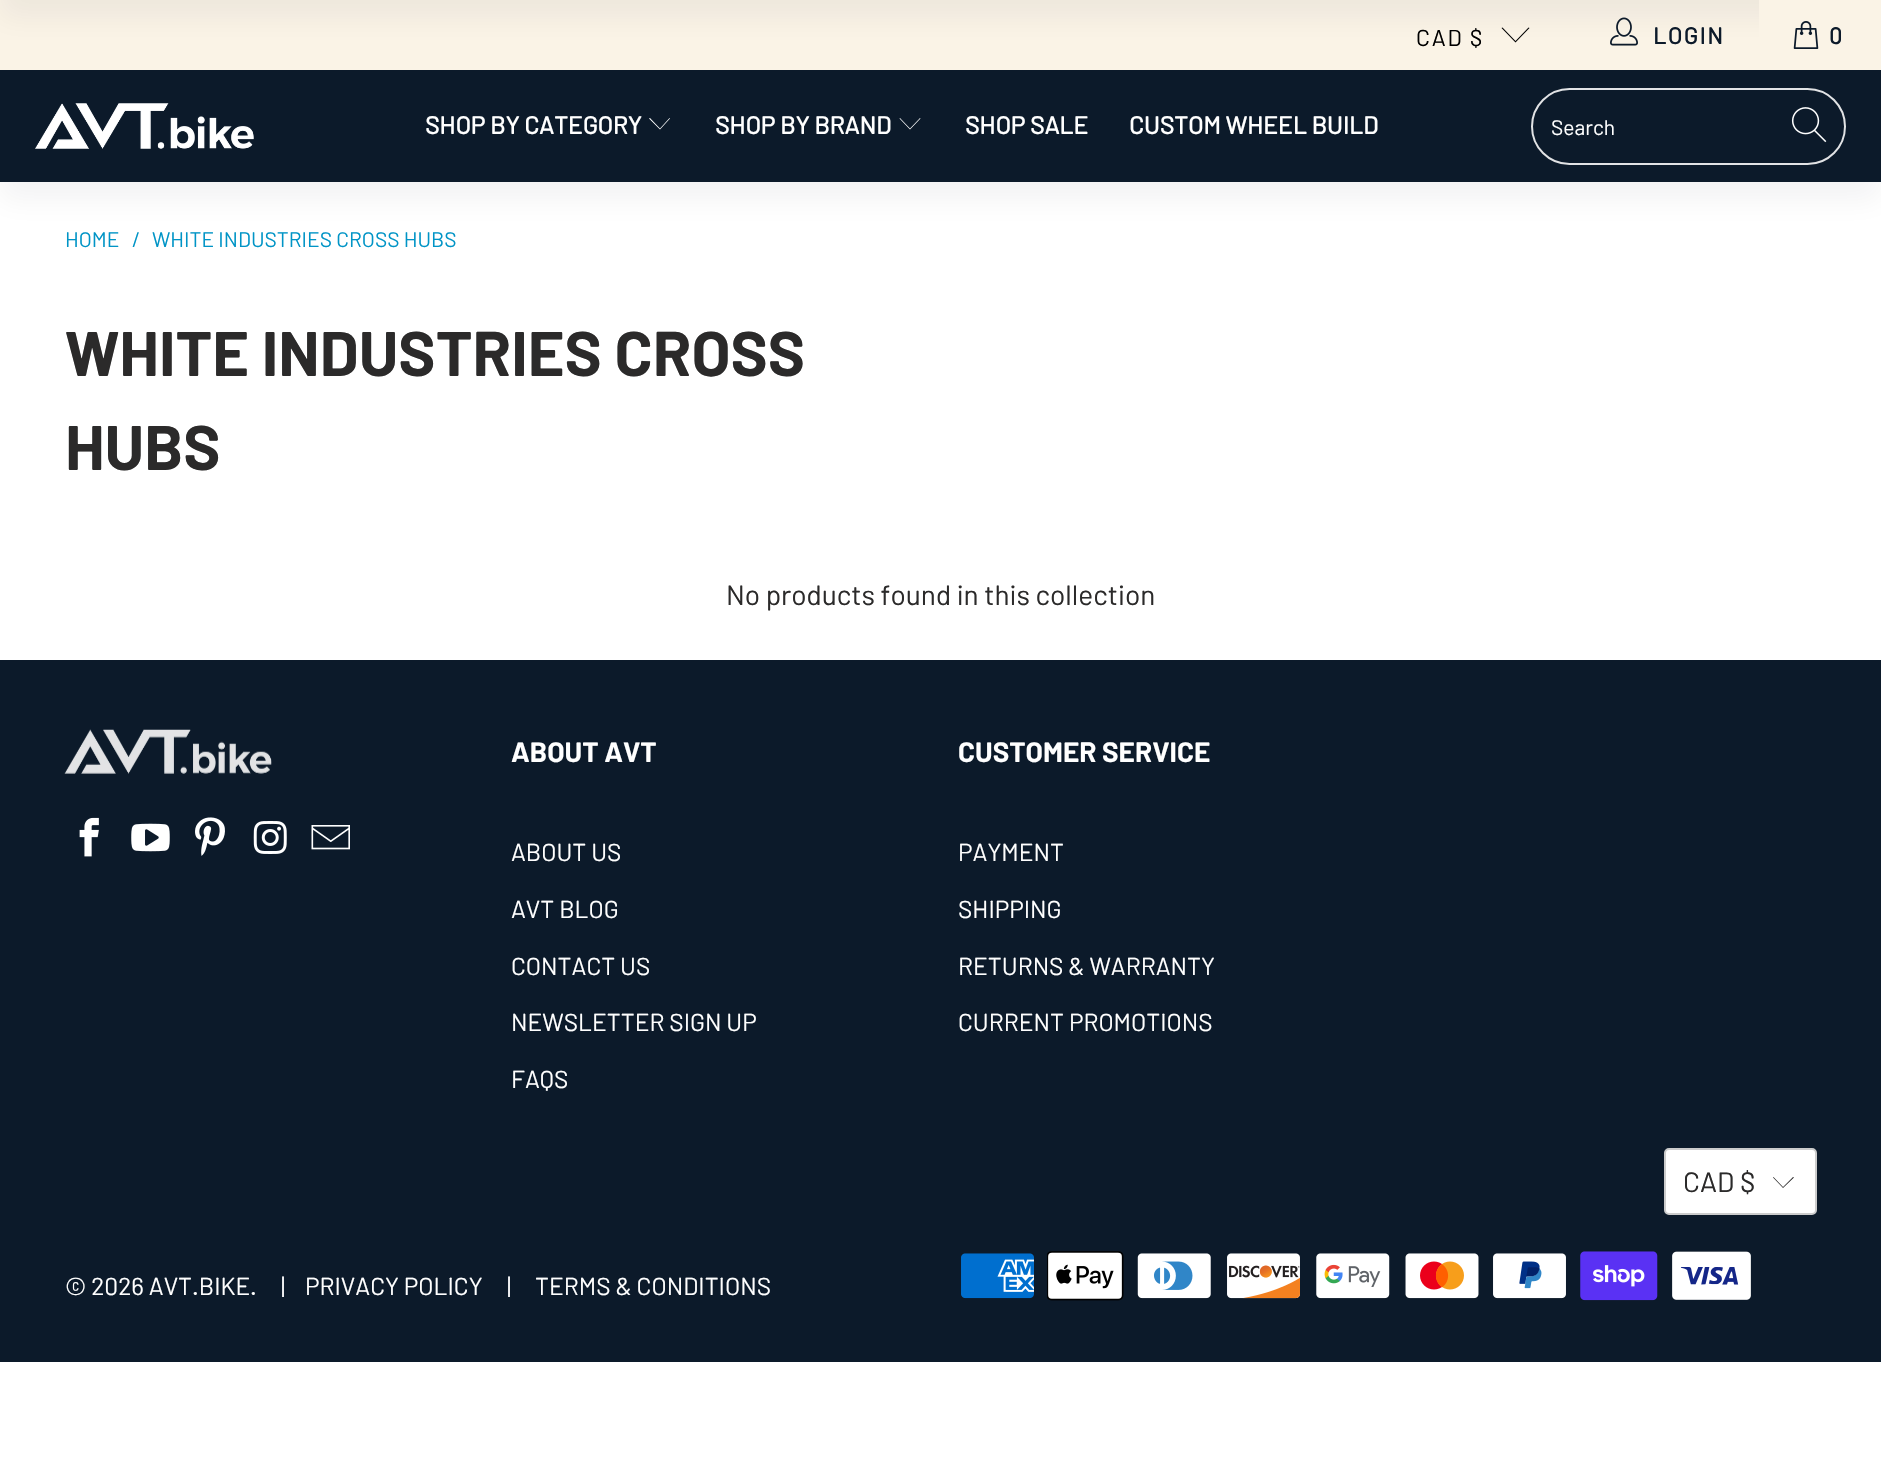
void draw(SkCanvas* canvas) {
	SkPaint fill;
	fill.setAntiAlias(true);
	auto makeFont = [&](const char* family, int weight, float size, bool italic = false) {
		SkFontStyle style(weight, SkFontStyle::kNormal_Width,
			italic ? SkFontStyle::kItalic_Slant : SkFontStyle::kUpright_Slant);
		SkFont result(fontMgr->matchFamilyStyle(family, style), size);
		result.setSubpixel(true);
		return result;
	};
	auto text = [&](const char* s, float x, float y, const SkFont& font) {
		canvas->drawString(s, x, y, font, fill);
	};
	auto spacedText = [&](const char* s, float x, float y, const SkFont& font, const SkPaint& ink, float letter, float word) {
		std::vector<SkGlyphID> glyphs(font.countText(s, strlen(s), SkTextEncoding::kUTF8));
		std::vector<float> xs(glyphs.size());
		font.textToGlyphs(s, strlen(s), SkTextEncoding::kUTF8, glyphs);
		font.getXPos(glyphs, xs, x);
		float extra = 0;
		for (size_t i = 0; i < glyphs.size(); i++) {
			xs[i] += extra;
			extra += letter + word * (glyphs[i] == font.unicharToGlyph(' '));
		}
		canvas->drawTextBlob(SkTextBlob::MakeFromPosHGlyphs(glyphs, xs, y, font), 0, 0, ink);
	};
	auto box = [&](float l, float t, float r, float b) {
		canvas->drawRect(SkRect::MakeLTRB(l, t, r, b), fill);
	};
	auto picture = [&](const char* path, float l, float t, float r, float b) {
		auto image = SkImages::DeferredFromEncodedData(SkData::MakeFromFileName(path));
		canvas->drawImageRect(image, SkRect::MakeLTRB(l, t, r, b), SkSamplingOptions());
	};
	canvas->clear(0xFFFFFFFF);
	fill.setColor(0x0D0C1A2A);
	fill.setMaskFilter(SkMaskFilter::MakeBlur(kNormal_SkBlurStyle, 14));
	canvas->drawRect(SkRect::MakeLTRB(0, 88, 1881, 200), fill);
	fill.setMaskFilter(nullptr);
	fill.setColor(0xFFFAF3E6);
	box(0, 0, 1759, 70);
	fill.setColor(0xFF000000);
	canvas->drawPath(SkPathBuilder().moveTo(1515.5f, 42.5f).lineTo(1501.5f, 28).lineTo(1502.5f, 27.5f).lineTo(1515.5f, 41).lineTo(1528.5f, 27.5f).lineTo(1529.5f, 28).close().detach(), fill);
	picture("image0.png", 1610, 17, 1638, 46);
	fill.setColor(0x0D0C1A2A);
	fill.setMaskFilter(SkMaskFilter::MakeBlur(kNormal_SkBlurStyle, 14));
	canvas->drawRect(SkRect::MakeLTRB(0, -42, 1881, 18), fill);
	fill.setMaskFilter(nullptr);
	fill.setColor(0xFFFAF3E6);
	box(1759, 0, 1881, 70);
	picture("image1.png", 1793, 21, 1819, 49);
	fill.setColor(0xFF0C1A2A);
	box(0, 70, 1881, 182);
	picture("image2.png", 35, 103, 254, 149);
	fill.setColor(0xFFFFFFFF);
	canvas->drawPath(SkPathBuilder().moveTo(660, 129.5f).lineTo(649, 118.5f).lineTo(650, 118).lineTo(660, 128.5f).lineTo(669.5f, 118).lineTo(670, 118.5f).close().detach(), fill);
	canvas->drawPath(SkPathBuilder().moveTo(910, 129.5f).lineTo(899.5f, 118.5f).lineTo(900, 118).lineTo(910, 128.5f).lineTo(920, 118).lineTo(920.5f, 118.5f).close().detach(), fill);
	fill.setStyle(SkPaint::kStroke_Style);
	fill.setStrokeWidth(2);
	fill.setColor(0xFFE2E3E5);
	canvas->drawRoundRect(SkRect::MakeLTRB(1532, 89, 1845, 164), 37.5f, 37.5f, fill);
	picture("image3.png", 1791, 107, 1827, 143);
	fill.setStyle(SkPaint::kFill_Style);
	fill.setColor(0xFF0C1A2A);
	box(0, 660, 1881, 1362);
	picture("image4.png", 64, 729, 272, 774);
	picture("image5.png", 79, 817, 99, 857);
	picture("image6.png", 131, 823, 170, 852);
	picture("image7.png", 195, 817, 225, 856);
	picture("image8.png", 253, 821, 287, 854);
	picture("image9.png", 311, 825, 350, 850);
	fill.setColor(0xFFFFFFFF);
	canvas->drawRoundRect(SkRect::MakeLTRB(1665, 1149, 1816, 1214), 4, 4, fill);
	fill.setStyle(SkPaint::kStroke_Style);
	fill.setColor(0xFFCCCCCC);
	canvas->drawRoundRect(SkRect::MakeLTRB(1665, 1149, 1816, 1214), 4, 4, fill);
	fill.setStyle(SkPaint::kFill_Style);
	fill.setColor(0xFF2B2A2A);
	canvas->drawPath(SkPathBuilder().moveTo(1783, 1188).lineTo(1773, 1177.5f).lineTo(1773.5f, 1177).lineTo(1783, 1187).lineTo(1793, 1177).lineTo(1794, 1177.5f).close().detach(), fill);
	picture("image10.png", 961, 1253, 1034, 1299);
	picture("image11.png", 1047, 1251, 1124, 1301);
	picture("image12.png", 1137, 1253, 1211, 1299);
	picture("image13.png", 1227, 1253, 1300, 1299);
	picture("image14.png", 1316, 1253, 1390, 1299);
	picture("image15.png", 1405, 1253, 1479, 1299);
	picture("image16.png", 1493, 1253, 1566, 1299);
	picture("image17.png", 1580, 1251, 1658, 1301);
	picture("image18.png", 1672, 1251, 1751, 1300);
	auto font1 = makeFont("Barlow", 400, 23);
	fill.setColor(0xFF000000);
	spacedText("CAD $", 1416, 46, font1, fill, 1.75f, 0);
	auto font2 = makeFont("Barlow", 700, 23);
	fill.setColor(0xFF0C1A2A);
	spacedText("LOGIN", 1653, 44, font2, fill, 1.75f, 0);
	spacedText("0", 1829, 44, font2, fill, 1.75f, 0);
	auto font3 = makeFont("Barlow", 700, 24.5f);
	fill.setColor(0xFFFFFFFF);
	text("SHOP BY CATEGORY", 425, 134, font3);
	text("SHOP BY BRAND", 715, 134, font3);
	text("SHOP SALE", 965, 134, font3);
	text("CUSTOM WHEEL BUILD", 1129, 134, font3);
	auto font4 = makeFont("Barlow", 400, 21);
	text("Search", 1551, 135, font4);
	fill.setColor(0xFF0094C6);
	text("HOME", 65, 247, font4);
	text("/", 132, 247, font4);
	text("WHITE INDUSTRIES CROSS HUBS", 152, 247, font4);
	auto font5 = makeFont("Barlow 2", 700, 63);
	fill.setColor(0xFF2B2A2A);
	text("WHITE INDUSTRIES CROSS", 65, 376, font5);
	text("HUBS", 65, 470, font5);
	auto font6 = makeFont("Barlow", 400, 28);
	text("No products found in this collection", 726, 605, font6);
	auto font7 = makeFont("Barlow 2", 700, 28);
	fill.setColor(0xFFFFFFFF);
	text("ABOUT AVT", 511, 762, font7);
	auto font8 = makeFont("Barlow", 400, 24.5f);
	text("ABOUT US", 511, 861, font8);
	text("AVT BLOG", 511, 918, font8);
	text("CONTACT US", 511, 975, font8);
	text("NEWSLETTER SIGN UP", 511, 1031, font8);
	text("FAQS", 511, 1088, font8);
	text("CUSTOMER SERVICE", 958, 762, font7);
	text("PAYMENT", 958, 861, font8);
	text("SHIPPING", 958, 918, font8);
	text("RETURNS & WARRANTY", 958, 975, font8);
	text("CURRENT PROMOTIONS", 958, 1031, font8);
	fill.setColor(0xFF2B2A2A);
	text("CAD $", 1683, 1192, font6);
	fill.setColor(0xFFFFFFFF);
	text("© 2026 AVT.BIKE", 65, 1295, font8);
	text(".", 250, 1295, font8);
	text("|", 281, 1295, font8);
	text("PRIVACY POLICY", 305, 1295, font8);
	text("|", 507, 1295, font8);
	text("TERMS & CONDITIONS", 535, 1295, font8);
}
